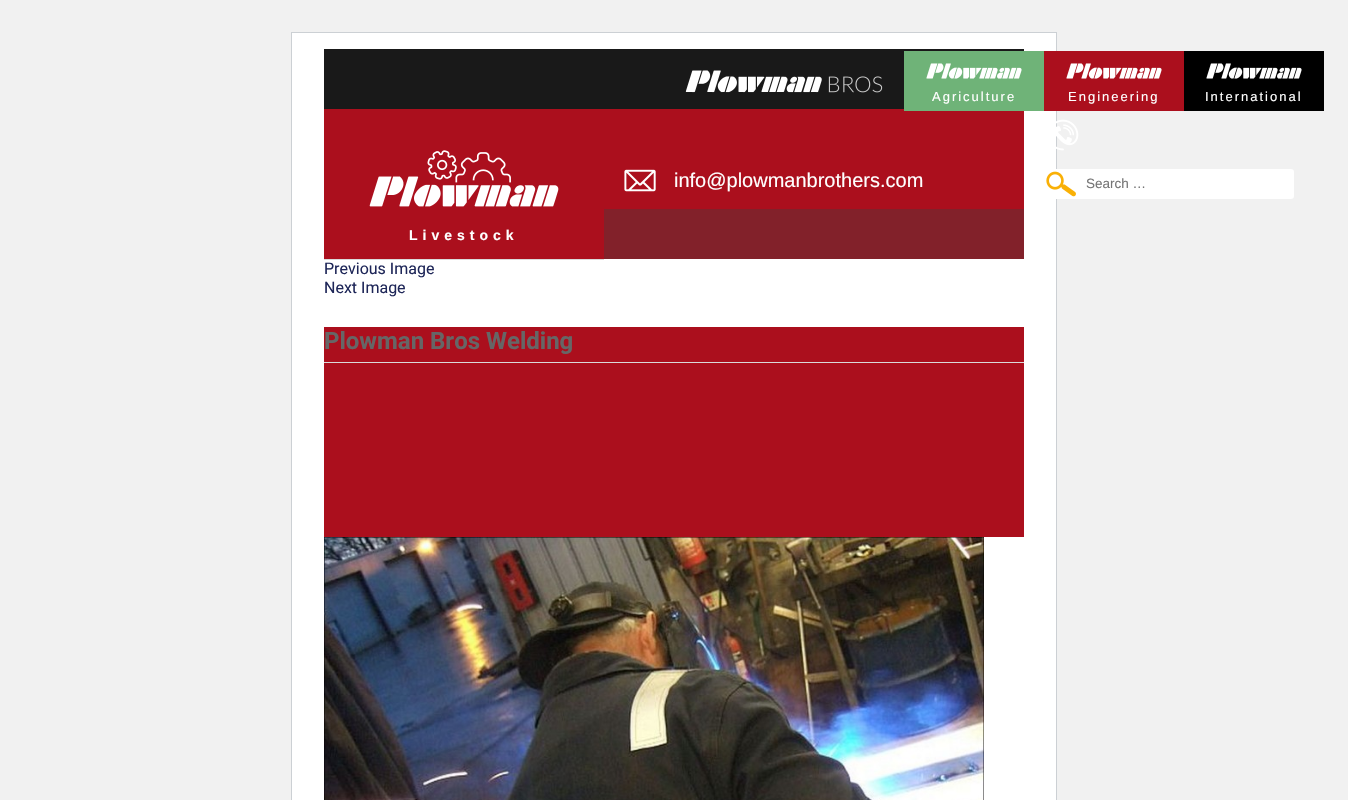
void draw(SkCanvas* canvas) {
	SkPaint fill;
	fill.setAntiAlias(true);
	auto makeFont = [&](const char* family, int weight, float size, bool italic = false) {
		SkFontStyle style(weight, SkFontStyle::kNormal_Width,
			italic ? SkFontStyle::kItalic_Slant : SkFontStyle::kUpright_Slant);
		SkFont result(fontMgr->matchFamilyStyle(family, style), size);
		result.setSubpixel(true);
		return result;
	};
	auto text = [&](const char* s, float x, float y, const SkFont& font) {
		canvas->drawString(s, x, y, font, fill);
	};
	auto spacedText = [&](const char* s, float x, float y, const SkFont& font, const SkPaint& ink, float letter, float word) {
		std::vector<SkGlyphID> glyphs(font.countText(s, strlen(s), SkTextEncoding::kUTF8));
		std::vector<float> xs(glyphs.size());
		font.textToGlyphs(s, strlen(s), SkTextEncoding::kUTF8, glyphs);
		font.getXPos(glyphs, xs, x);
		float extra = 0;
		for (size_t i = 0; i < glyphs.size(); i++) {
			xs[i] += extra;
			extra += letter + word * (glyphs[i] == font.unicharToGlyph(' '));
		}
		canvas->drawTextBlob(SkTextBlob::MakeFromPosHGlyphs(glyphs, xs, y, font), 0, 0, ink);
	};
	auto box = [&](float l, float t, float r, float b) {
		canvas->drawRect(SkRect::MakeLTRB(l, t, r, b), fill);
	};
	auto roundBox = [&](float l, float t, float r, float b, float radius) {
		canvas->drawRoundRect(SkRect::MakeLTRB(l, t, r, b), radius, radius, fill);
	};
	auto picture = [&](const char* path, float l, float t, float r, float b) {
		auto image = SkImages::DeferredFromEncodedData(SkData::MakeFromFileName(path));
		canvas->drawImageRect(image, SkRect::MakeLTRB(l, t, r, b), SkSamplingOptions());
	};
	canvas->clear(0xFFF1F1F1);
	fill.setColor(0xFFFFFFFF);
	canvas->drawRect(SkRect::MakeLTRB(291.5f, 32.5f, 1056.5f, 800.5f), fill);
	fill.setStyle(SkPaint::kStroke_Style);
	fill.setStrokeWidth(1);
	fill.setColor(0xFFCCD0D4);
	canvas->drawRect(SkRect::MakeLTRB(291.5f, 32.5f, 1056.5f, 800.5f), fill);
	fill.setStyle(SkPaint::kFill_Style);
	fill.setColor(0xFFAB0F1D);
	box(324, 109, 1024, 209);
	fill.setColor(0xFF191919);
	box(324, 49, 1024, 109);
	picture("image0.png", 685, 70, 883, 93);
	fill.setColor(0xFF6FB378);
	box(904, 51, 1044, 111);
	picture("image1.png", 926, 63, 1022, 79);
	fill.setColor(0xFFAB0F1D);
	box(1044, 51, 1184, 111);
	picture("image2.png", 1066, 63, 1162, 79);
	fill.setColor(0xFF000000);
	box(1184, 51, 1324, 111);
	picture("image3.png", 1206, 63, 1302, 79);
	picture("image4.png", 1056, 119, 1079, 151);
	picture("image5.png", 624, 169, 656, 192);
	fill.setColor(0xFFFFFFFF);
	roundBox(1044, 169, 1294, 199, 3);
	picture("image6.png", 1046, 171, 1076, 197);
	fill.setColor(0xFFAB0F1D);
	canvas->drawPath(SkPathBuilder().moveTo(327, 109).lineTo(601, 109).cubicTo(602.5f, 109, 604, 110.5f, 604, 112).lineTo(604, 260).lineTo(324, 260).lineTo(324, 112).cubicTo(324, 110.5f, 325.5f, 109, 327, 109).close().detach(), fill);
	fill.setColor(0xFFDADADA);
	box(324, 259, 604, 260);
	picture("image7.png", 369, 150, 559, 207);
	fill.setColor(0xFF82212A);
	box(604, 209, 1024, 259);
	fill.setColor(0xFFAB0F1D);
	box(324, 327, 1024, 537);
	fill.setColor(0xFFDADADA);
	box(324, 362, 1024, 363);
	picture("image8.png", 324, 537, 984, 800);
	auto font1 = makeFont("Liberation Sans", 400, 13);
	fill.setColor(0xFFFFFFFF);
	spacedText("Agriculture", 932, 101, font1, fill, 2, 0);
	spacedText("Engineering", 1068, 101, font1, fill, 2, 0);
	spacedText("International", 1205, 101, font1, fill, 2, 0);
	auto font2 = makeFont("Liberation Sans", 400, 20);
	text("info@plowmanbrothers.com", 674, 187, font2);
	auto font3 = makeFont("Liberation Sans", 400, 13.5f);
	fill.setColor(0xFF757575);
	text("Search …", 1086, 188, font3);
	auto font4 = makeFont("Liberation Sans", 700, 14);
	fill.setColor(0xFFFFFFFF);
	spacedText("Livestock", 409, 240, font4, fill, 5, 0);
	auto font5 = makeFont("Roboto", 400, 16);
	fill.setColor(0xFF1E2658);
	text("Previous Image", 324, 274, font5);
	text("Next Image", 324, 293, font5);
	auto font6 = makeFont("Roboto", 700, 24);
	fill.setColor(0xFF666666);
	text("Plowman Bros Welding", 324, 349, font6);
}
